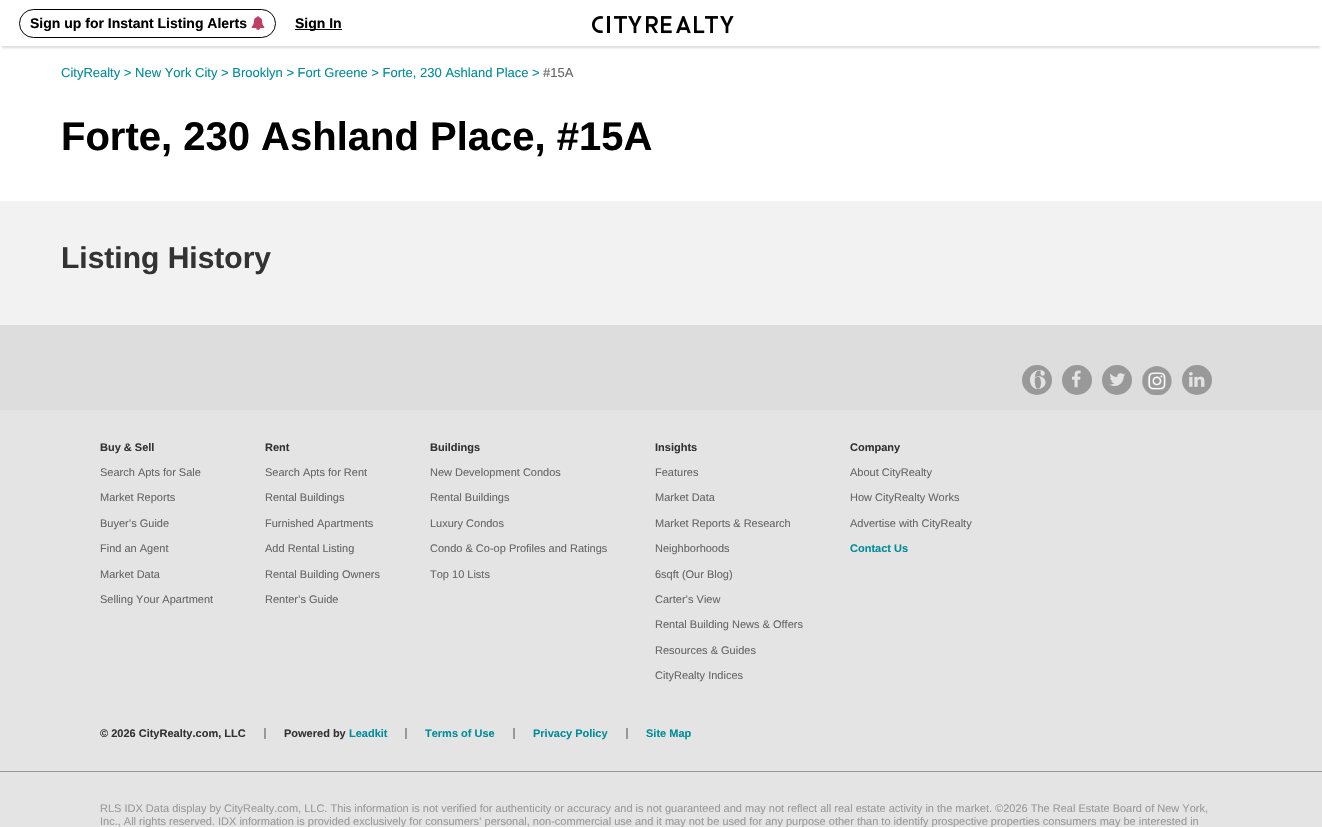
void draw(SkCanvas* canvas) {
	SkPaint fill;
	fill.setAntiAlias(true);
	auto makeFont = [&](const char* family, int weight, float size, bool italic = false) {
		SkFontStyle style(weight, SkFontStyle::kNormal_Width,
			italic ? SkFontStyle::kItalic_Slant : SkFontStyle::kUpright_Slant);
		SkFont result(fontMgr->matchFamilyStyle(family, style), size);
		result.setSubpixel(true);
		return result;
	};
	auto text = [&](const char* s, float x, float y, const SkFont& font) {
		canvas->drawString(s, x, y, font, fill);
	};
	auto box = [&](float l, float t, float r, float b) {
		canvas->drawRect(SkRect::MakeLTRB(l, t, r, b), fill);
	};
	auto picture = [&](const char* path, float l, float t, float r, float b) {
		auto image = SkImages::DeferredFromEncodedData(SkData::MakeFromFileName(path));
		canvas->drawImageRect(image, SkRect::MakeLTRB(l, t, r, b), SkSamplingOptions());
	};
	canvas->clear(0xFFFFFFFF);
	canvas->save();
	canvas->clipRect(SkRect::MakeLTRB(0, 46, 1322, 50));
	fill.setColor(0xFFDDDDDD);
	fill.setMaskFilter(SkMaskFilter::MakeBlur(kNormal_SkBlurStyle, 1));
	canvas->drawRect(SkRect::MakeLTRB(2, 6, 1320, 48), fill);
	fill.setMaskFilter(nullptr);
	canvas->restore();
	fill.setStyle(SkPaint::kStroke_Style);
	fill.setStrokeWidth(1);
	fill.setColor(0xFF000000);
	canvas->drawRoundRect(SkRect::MakeLTRB(19.5f, 9.5f, 275.5f, 37.5f), 14, 14, fill);
	picture("image0.png", 251, 16, 265, 30);
	fill.setStyle(SkPaint::kFill_Style);
	box(295, 29, 342, 30);
	picture("image1.png", 592, 16, 604, 34);
	box(607, 16, 610, 33);
	picture("image2.png", 614, 16, 627, 34);
	picture("image3.png", 628, 16, 642, 34);
	picture("image4.png", 646, 16, 658, 34);
	picture("image5.png", 661, 16, 672, 34);
	picture("image6.png", 676, 16, 691, 34);
	picture("image7.png", 694, 16, 705, 34);
	picture("image2.png", 705, 16, 718, 34);
	picture("image3.png", 720, 16, 734, 34);
	fill.setColor(0xFFF2F2F2);
	box(0, 201, 1322, 325);
	fill.setColor(0xFFDDDDDD);
	box(0, 325, 1322, 410);
	fill.setColor(0xFF999999);
	canvas->drawCircle(1037, 380, 15, fill);
	picture("image8.png", 1030, 370, 1046, 389);
	canvas->drawCircle(1077, 380, 15, fill);
	picture("image9.png", 1072, 370, 1081, 388);
	canvas->drawCircle(1117, 380, 15, fill);
	picture("image10.png", 1109, 373, 1125, 386);
	picture("image11.png", 1142, 366, 1172, 395);
	canvas->drawCircle(1197, 380, 15, fill);
	picture("image12.png", 1189, 372, 1205, 387);
	fill.setColor(0xFFE4E4E4);
	box(0, 410, 1322, 771);
	fill.setColor(0xFF999999);
	box(264, 728, 266, 739);
	box(405, 728, 407, 739);
	box(513, 728, 515, 739);
	box(626, 728, 628, 739);
	fill.setColor(0xFFE4E4E4);
	box(0, 772, 1322, 827);
	fill.setColor(0xFF999999);
	box(0, 771, 1322, 772);
	auto font1 = makeFont("Liberation Sans", 700, 14);
	fill.setColor(0xFF000000);
	text("Sign up for Instant Listing Alerts", 30, 28, font1);
	text("Sign In", 295, 28, font1);
	auto font2 = makeFont("Liberation Sans", 400, 13);
	fill.setColor(0xFF008C99);
	text("CityRealty > New York City > Brooklyn > Fort Greene > Forte, 230 Ashland Place >", 61, 77, font2);
	fill.setColor(0xFF666666);
	text("#15A", 543, 77, font2);
	auto font3 = makeFont("Liberation Sans", 700, 40);
	fill.setColor(0xFF000000);
	text("Forte, 230 Ashland Place, #15A", 61, 150, font3);
	auto font4 = makeFont("Liberation Sans", 700, 30);
	fill.setColor(0xFF333333);
	text("Listing History", 61, 268, font4);
	auto font5 = makeFont("Liberation Sans", 700, 11);
	text("Buy & Sell", 100, 451, font5);
	auto font6 = makeFont("Liberation Sans", 400, 11);
	fill.setColor(0xFF666666);
	text("Search Apts for Sale", 100, 476, font6);
	text("Market Reports", 100, 501, font6);
	text("Buyer’s Guide", 100, 527, font6);
	text("Find an Agent", 100, 552, font6);
	text("Market Data", 100, 578, font6);
	text("Selling Your Apartment", 100, 603, font6);
	fill.setColor(0xFF333333);
	text("Rent", 265, 451, font5);
	fill.setColor(0xFF666666);
	text("Search Apts for Rent", 265, 476, font6);
	text("Rental Buildings", 265, 501, font6);
	text("Furnished Apartments", 265, 527, font6);
	text("Add Rental Listing", 265, 552, font6);
	text("Rental Building Owners", 265, 578, font6);
	text("Renter’s Guide", 265, 603, font6);
	fill.setColor(0xFF333333);
	text("Buildings", 430, 451, font5);
	fill.setColor(0xFF666666);
	text("New Development Condos", 430, 476, font6);
	text("Rental Buildings", 430, 501, font6);
	text("Luxury Condos", 430, 527, font6);
	text("Condo & Co-op Profiles and Ratings", 430, 552, font6);
	text("Top 10 Lists", 430, 578, font6);
	fill.setColor(0xFF333333);
	text("Insights", 655, 451, font5);
	fill.setColor(0xFF666666);
	text("Features", 655, 476, font6);
	text("Market Data", 655, 501, font6);
	text("Market Reports & Research", 655, 527, font6);
	text("Neighborhoods", 655, 552, font6);
	text("6sqft (Our Blog)", 655, 578, font6);
	text("Carter’s View", 655, 603, font6);
	text("Rental Building News & Offers", 655, 628, font6);
	text("Resources & Guides", 655, 654, font6);
	text("CityRealty Indices", 655, 679, font6);
	fill.setColor(0xFF333333);
	text("Company", 850, 451, font5);
	fill.setColor(0xFF666666);
	text("About CityRealty", 850, 476, font6);
	text("How CityRealty Works", 850, 501, font6);
	text("Advertise with CityRealty", 850, 527, font6);
	fill.setColor(0xFF008C99);
	text("Contact Us", 850, 552, font5);
	fill.setColor(0xFF333333);
	text("© 2026 CityRealty.com, LLC", 100, 737, font5);
	text("Powered by", 284, 737, font5);
	fill.setColor(0xFF008C99);
	text("Leadkit", 349, 737, font5);
	text("Terms of Use", 425, 737, font5);
	text("Privacy Policy", 533, 737, font5);
	text("Site Map", 646, 737, font5);
	fill.setColor(0xFF999999);
	text("RLS IDX Data display by CityRealty.com, LLC. This information is not verified for authenticity or accuracy and is not guaranteed and may not reflect all real estate activity in the market. ©2026 The Real Estate Board of New York,", 100, 812, font6);
	text("Inc., All rights reserved. IDX information is provided exclusively for consumers’ personal, non-commercial use and it may not be used for any purpose other than to identify prospective properties consumers may be interested in", 100, 825, font6);
}
